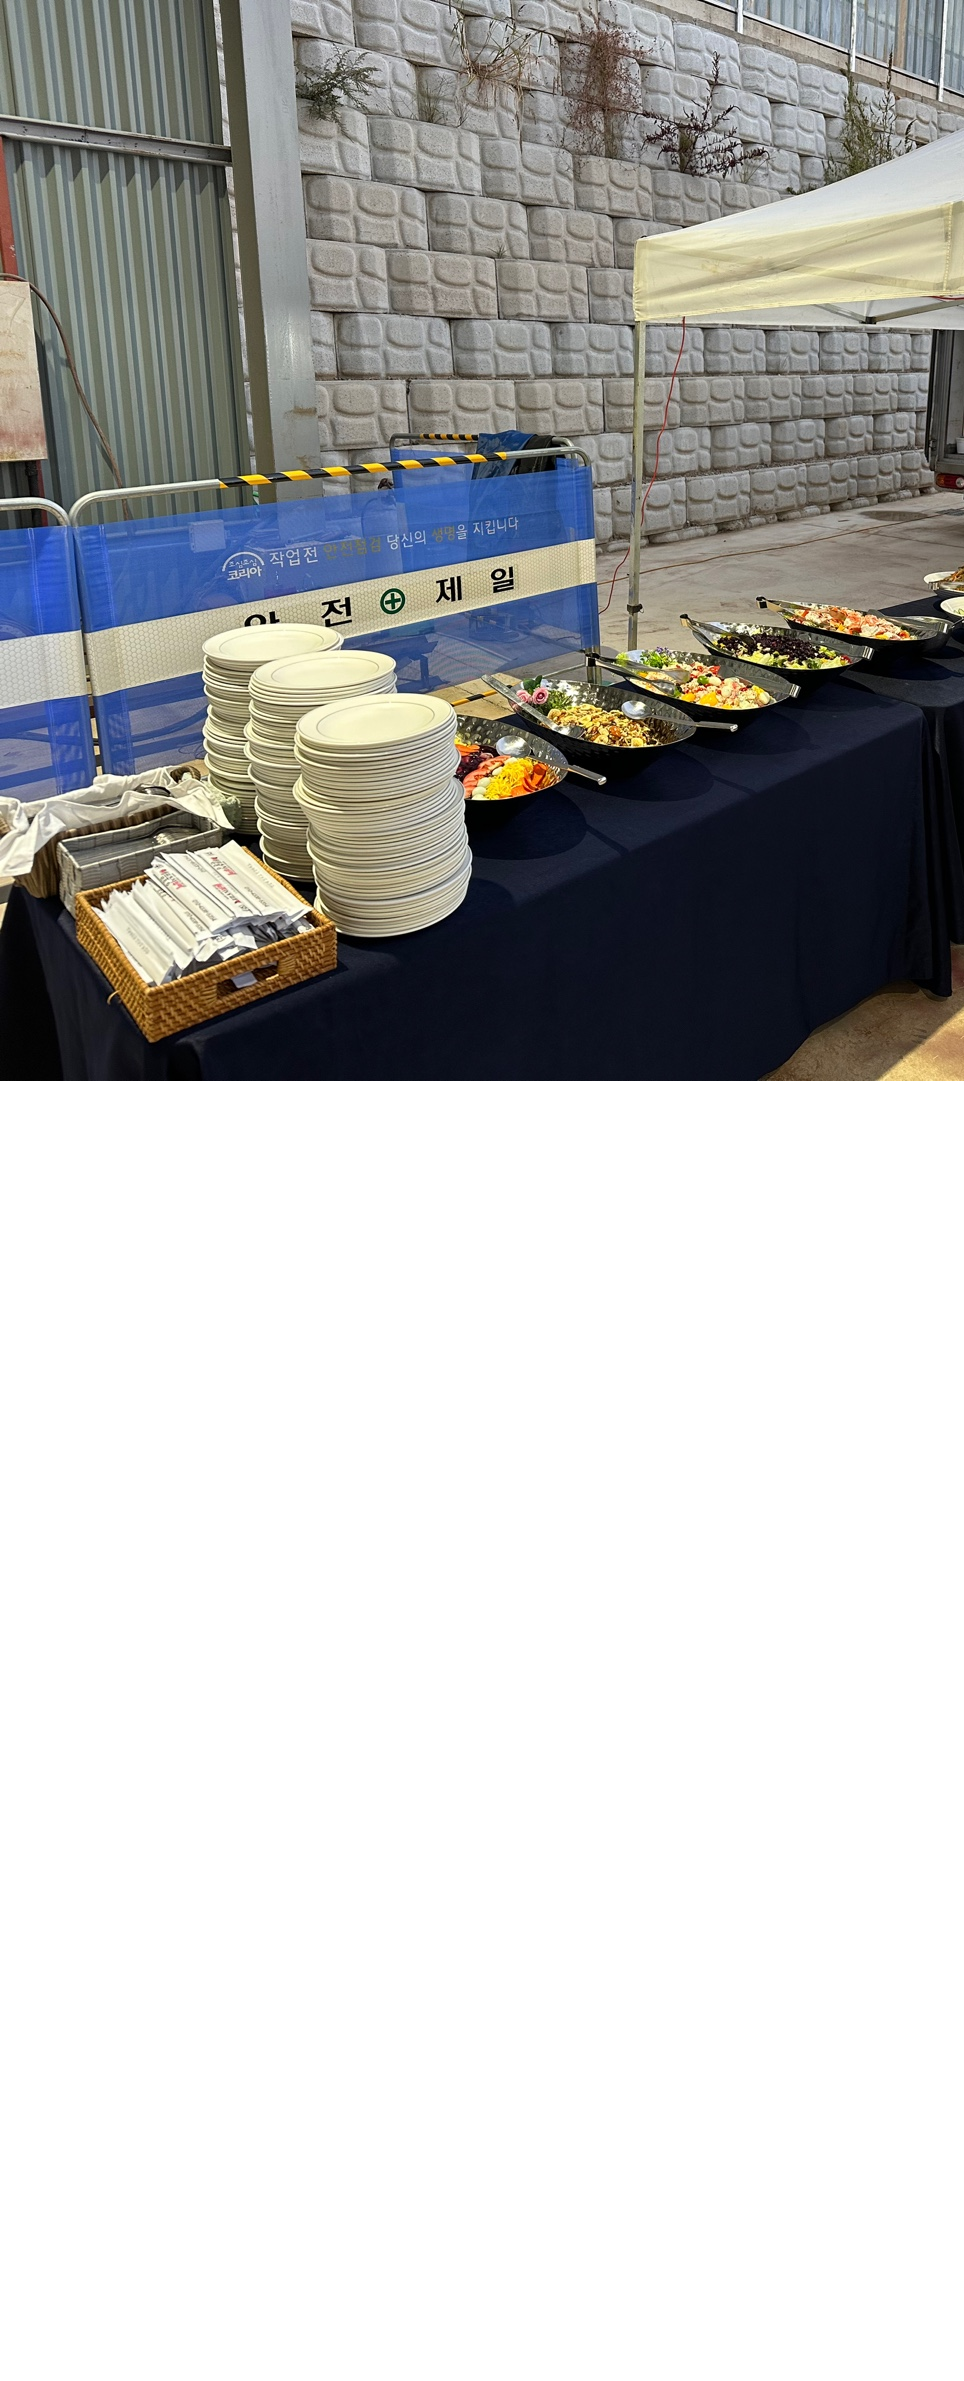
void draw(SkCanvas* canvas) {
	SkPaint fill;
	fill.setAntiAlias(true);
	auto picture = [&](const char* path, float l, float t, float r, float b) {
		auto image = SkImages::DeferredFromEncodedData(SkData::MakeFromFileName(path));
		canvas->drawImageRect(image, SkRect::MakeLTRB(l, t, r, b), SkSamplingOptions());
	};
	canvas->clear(0xFFFFFFFF);
	picture("image0.png", 0, 0, 964, 1081);
}
